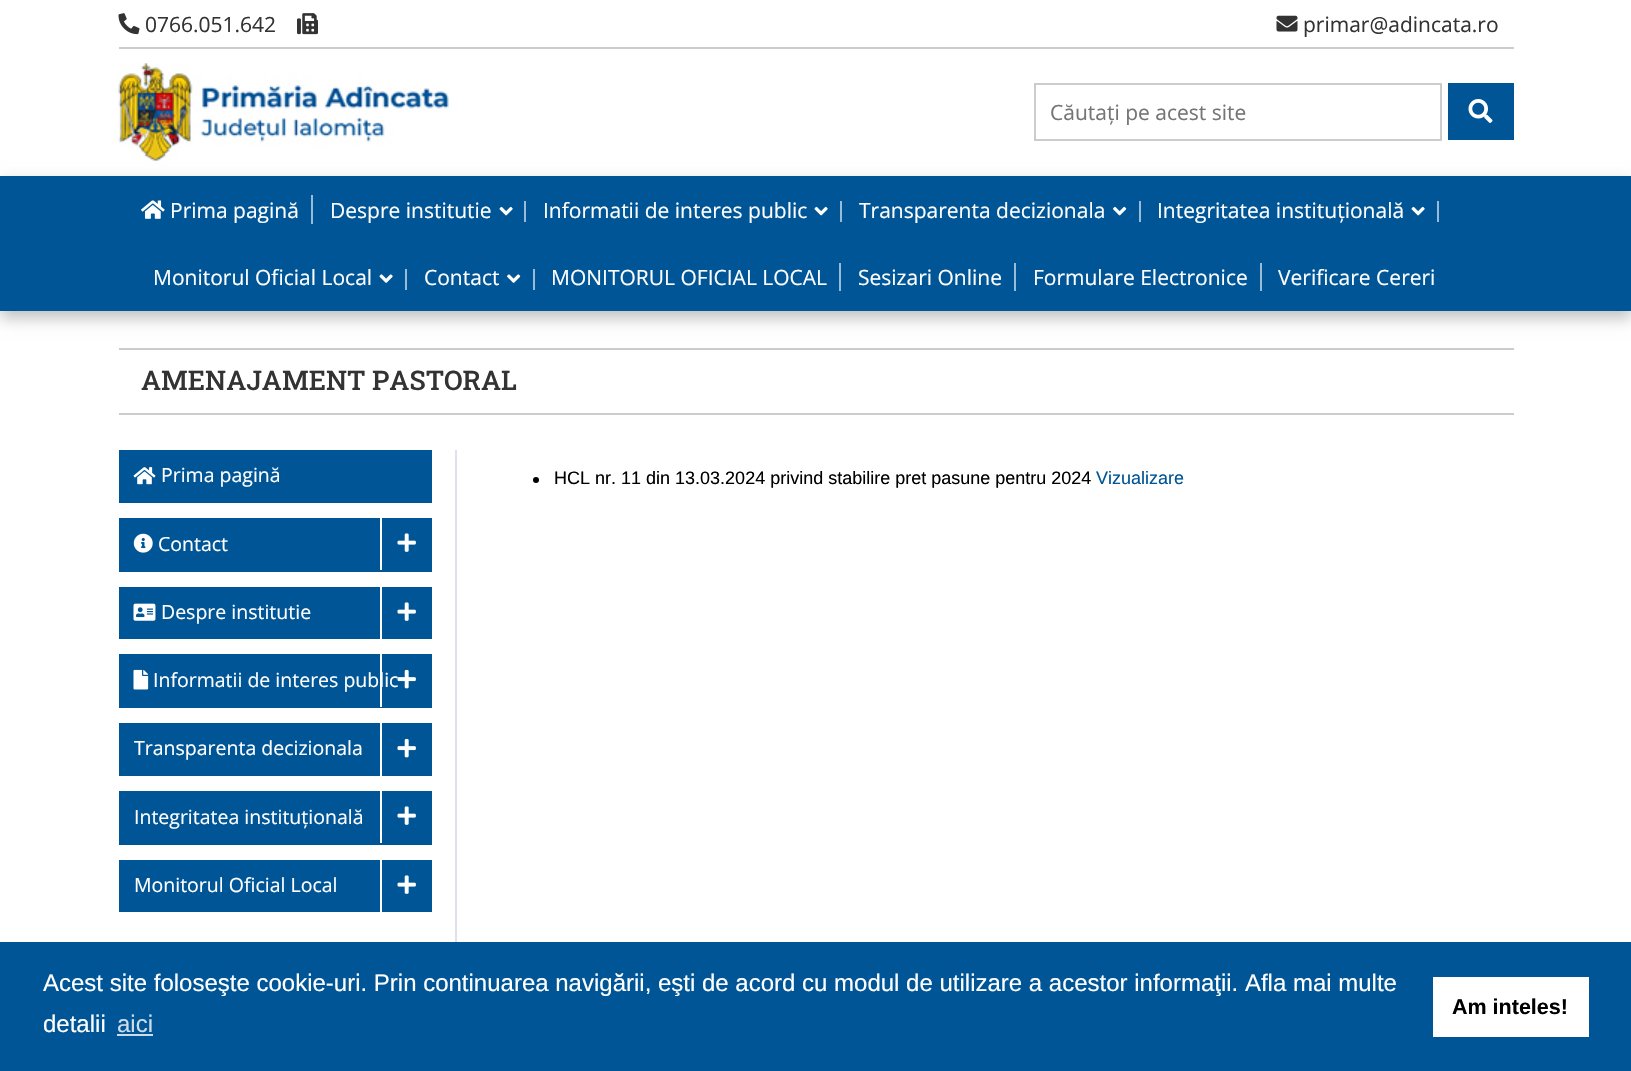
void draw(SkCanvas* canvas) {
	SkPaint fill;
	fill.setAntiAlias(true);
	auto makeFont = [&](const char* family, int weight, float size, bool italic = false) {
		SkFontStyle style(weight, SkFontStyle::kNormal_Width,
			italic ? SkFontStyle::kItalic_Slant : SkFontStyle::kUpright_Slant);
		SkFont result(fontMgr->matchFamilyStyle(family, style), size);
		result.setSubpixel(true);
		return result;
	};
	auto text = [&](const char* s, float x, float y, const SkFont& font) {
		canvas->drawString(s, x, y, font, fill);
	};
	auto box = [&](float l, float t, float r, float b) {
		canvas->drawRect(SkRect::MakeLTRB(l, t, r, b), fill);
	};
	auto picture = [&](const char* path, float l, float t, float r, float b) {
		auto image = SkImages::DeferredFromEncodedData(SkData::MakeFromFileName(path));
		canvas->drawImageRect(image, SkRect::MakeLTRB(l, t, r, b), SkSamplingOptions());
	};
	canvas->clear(0xFFFFFFFF);
	fill.setColor(0xFFCCCCCC);
	box(119, 47, 1514, 49);
	picture("image0.png", 118, 13, 140, 35);
	picture("image1.png", 297, 13, 318, 35);
	picture("image2.png", 1276, 15, 1298, 32);
	fill.setColor(0x40000000);
	fill.setMaskFilter(SkMaskFilter::MakeBlur(kNormal_SkBlurStyle, 7.5f));
	canvas->drawRect(SkRect::MakeLTRB(0, 183, 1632, 318), fill);
	fill.setMaskFilter(nullptr);
	picture("image3.png", 118, 63, 449, 161);
	fill.setStyle(SkPaint::kStroke_Style);
	fill.setStrokeWidth(2);
	fill.setColor(0xFFCCCCCC);
	canvas->drawRect(SkRect::MakeLTRB(1035, 84, 1441, 140), fill);
	fill.setStyle(SkPaint::kFill_Style);
	fill.setColor(0xFF005596);
	box(1448, 83, 1514, 140);
	picture("image4.png", 1468, 99, 1493, 123);
	box(0, 176, 1631, 311);
	fill.setColor(0xFF99BBD5);
	box(311, 195, 313, 224);
	picture("image5.png", 141, 200, 165, 219);
	box(524, 201, 526, 222);
	picture("image6.png", 499, 206, 513, 216);
	box(840, 201, 842, 222);
	picture("image6.png", 814, 206, 828, 216);
	box(1139, 201, 1141, 222);
	picture("image7.png", 1113, 206, 1127, 216);
	box(1437, 201, 1439, 222);
	picture("image6.png", 1411, 206, 1425, 216);
	box(405, 269, 407, 290);
	picture("image8.png", 379, 274, 393, 283);
	box(533, 269, 535, 290);
	picture("image9.png", 507, 274, 521, 283);
	box(839, 263, 841, 291);
	box(1014, 263, 1016, 291);
	box(1260, 263, 1262, 291);
	fill.setColor(0xFFCCCCCC);
	box(119, 348, 1514, 350);
	box(119, 413, 1514, 415);
	fill.setColor(0xFFDEE2E6);
	box(455, 450, 457, 950);
	fill.setColor(0xFF005596);
	box(119, 450, 432, 503);
	picture("image10.png", 133, 467, 156, 485);
	box(119, 518, 432, 572);
	picture("image11.png", 133, 533, 153, 553);
	fill.setColor(0xFFFFFFFF);
	box(380, 518, 382, 570);
	picture("image12.png", 397, 533, 416, 552);
	fill.setColor(0xFF005596);
	box(119, 587, 432, 639);
	picture("image13.png", 133, 603, 156, 621);
	fill.setColor(0xFFFFFFFF);
	box(380, 587, 382, 639);
	picture("image12.png", 397, 602, 416, 621);
	fill.setColor(0xFF005596);
	box(119, 654, 432, 708);
	fill.setColor(0xFFFFFFFF);
	box(380, 654, 382, 707);
	picture("image15.png", 133, 669, 149, 690);
	fill.setColor(0xFF005596);
	box(119, 723, 432, 776);
	fill.setColor(0xFFFFFFFF);
	box(380, 723, 382, 776);
	picture("image16.png", 397, 738, 416, 758);
	fill.setColor(0xFF005596);
	box(119, 791, 432, 845);
	fill.setColor(0xFFFFFFFF);
	box(380, 791, 382, 843);
	picture("image12.png", 397, 806, 416, 825);
	fill.setColor(0xFF005596);
	box(119, 860, 432, 912);
	fill.setColor(0xFFFFFFFF);
	box(380, 860, 382, 912);
	picture("image12.png", 397, 875, 416, 894);
	fill.setColor(0xFF000000);
	canvas->drawCircle(536, 480, 3, fill);
	fill.setColor(0xFF005596);
	box(0, 942, 1631, 1071);
	fill.setColor(0xFFCCDDEA);
	box(117, 1034, 153, 1036);
	fill.setColor(0xFFFFFFFF);
	box(1433, 977, 1589, 1037);
	auto font1 = makeFont("Open Sans", 400, 21);
	fill.setColor(0xFF333333);
	text("0766.051.642", 145, 32, font1);
	text("primar@adincata.ro", 1303, 32, font1);
	fill.setColor(0xFF757575);
	text("Căutați pe acest site", 1050, 120, font1);
	fill.setColor(0xFFFFFFFF);
	text("Prima pagină", 170, 218, font1);
	text("Despre institutie", 330, 218, font1);
	text("Informatii de interes public", 543, 218, font1);
	text("Transparenta decizionala", 859, 218, font1);
	text("Integritatea instituțională", 1157, 218, font1);
	text("Monitorul Oficial Local", 153, 285, font1);
	text("Contact", 424, 285, font1);
	text("MONITORUL OFICIAL LOCAL", 551, 285, font1);
	text("Sesizari Online", 858, 285, font1);
	text("Formulare Electronice", 1033, 285, font1);
	text("Verificare Cereri", 1278, 285, font1);
	auto font2 = makeFont("Roboto Slab", 500, 27);
	fill.setColor(0xFF333333);
	text("AMENAJAMENT PASTORAL", 141, 390, font2);
	auto font3 = makeFont("Open Sans", 400, 19.5f);
	fill.setColor(0xFFFFFFFF);
	text("Prima pagină", 161, 482, font3);
	text("Contact", 158, 551, font3);
	text("Despre institutie", 161, 619, font3);
	text("Informatii de interes public", 153, 687, font3);
	picture("image14.png", 397, 669, 416, 689);
	text("Transparenta decizionala", 134, 755, font3);
	text("Integritatea instituțională", 134, 824, font3);
	text("Monitorul Oficial Local", 134, 892, font3);
	auto font4 = makeFont("Liberation Sans", 400, 18);
	fill.setColor(0xFF000000);
	text("HCL nr. 11 din 13.03.2024 privind stabilire pret pasune pentru 2024", 554, 484, font4);
	fill.setColor(0xFF005596);
	text("Vizualizare", 1096, 484, font4);
	auto font5 = makeFont("Liberation Sans", 400, 24);
	fill.setColor(0xFFFFFFFF);
	text("Acest site foloseşte cookie-uri. Prin continuarea navigării, eşti de acord cu modul de utilizare a acestor informaţii. Afla mai multe", 43, 991, font5);
	text("detalii", 43, 1032, font5);
	fill.setColor(0xFFCCDDEA);
	text("aici", 117, 1032, font5);
	auto font6 = makeFont("Liberation Sans", 700, 21.5f);
	fill.setColor(0xFF000000);
	text("Am inteles!", 1452, 1014, font6);
}
